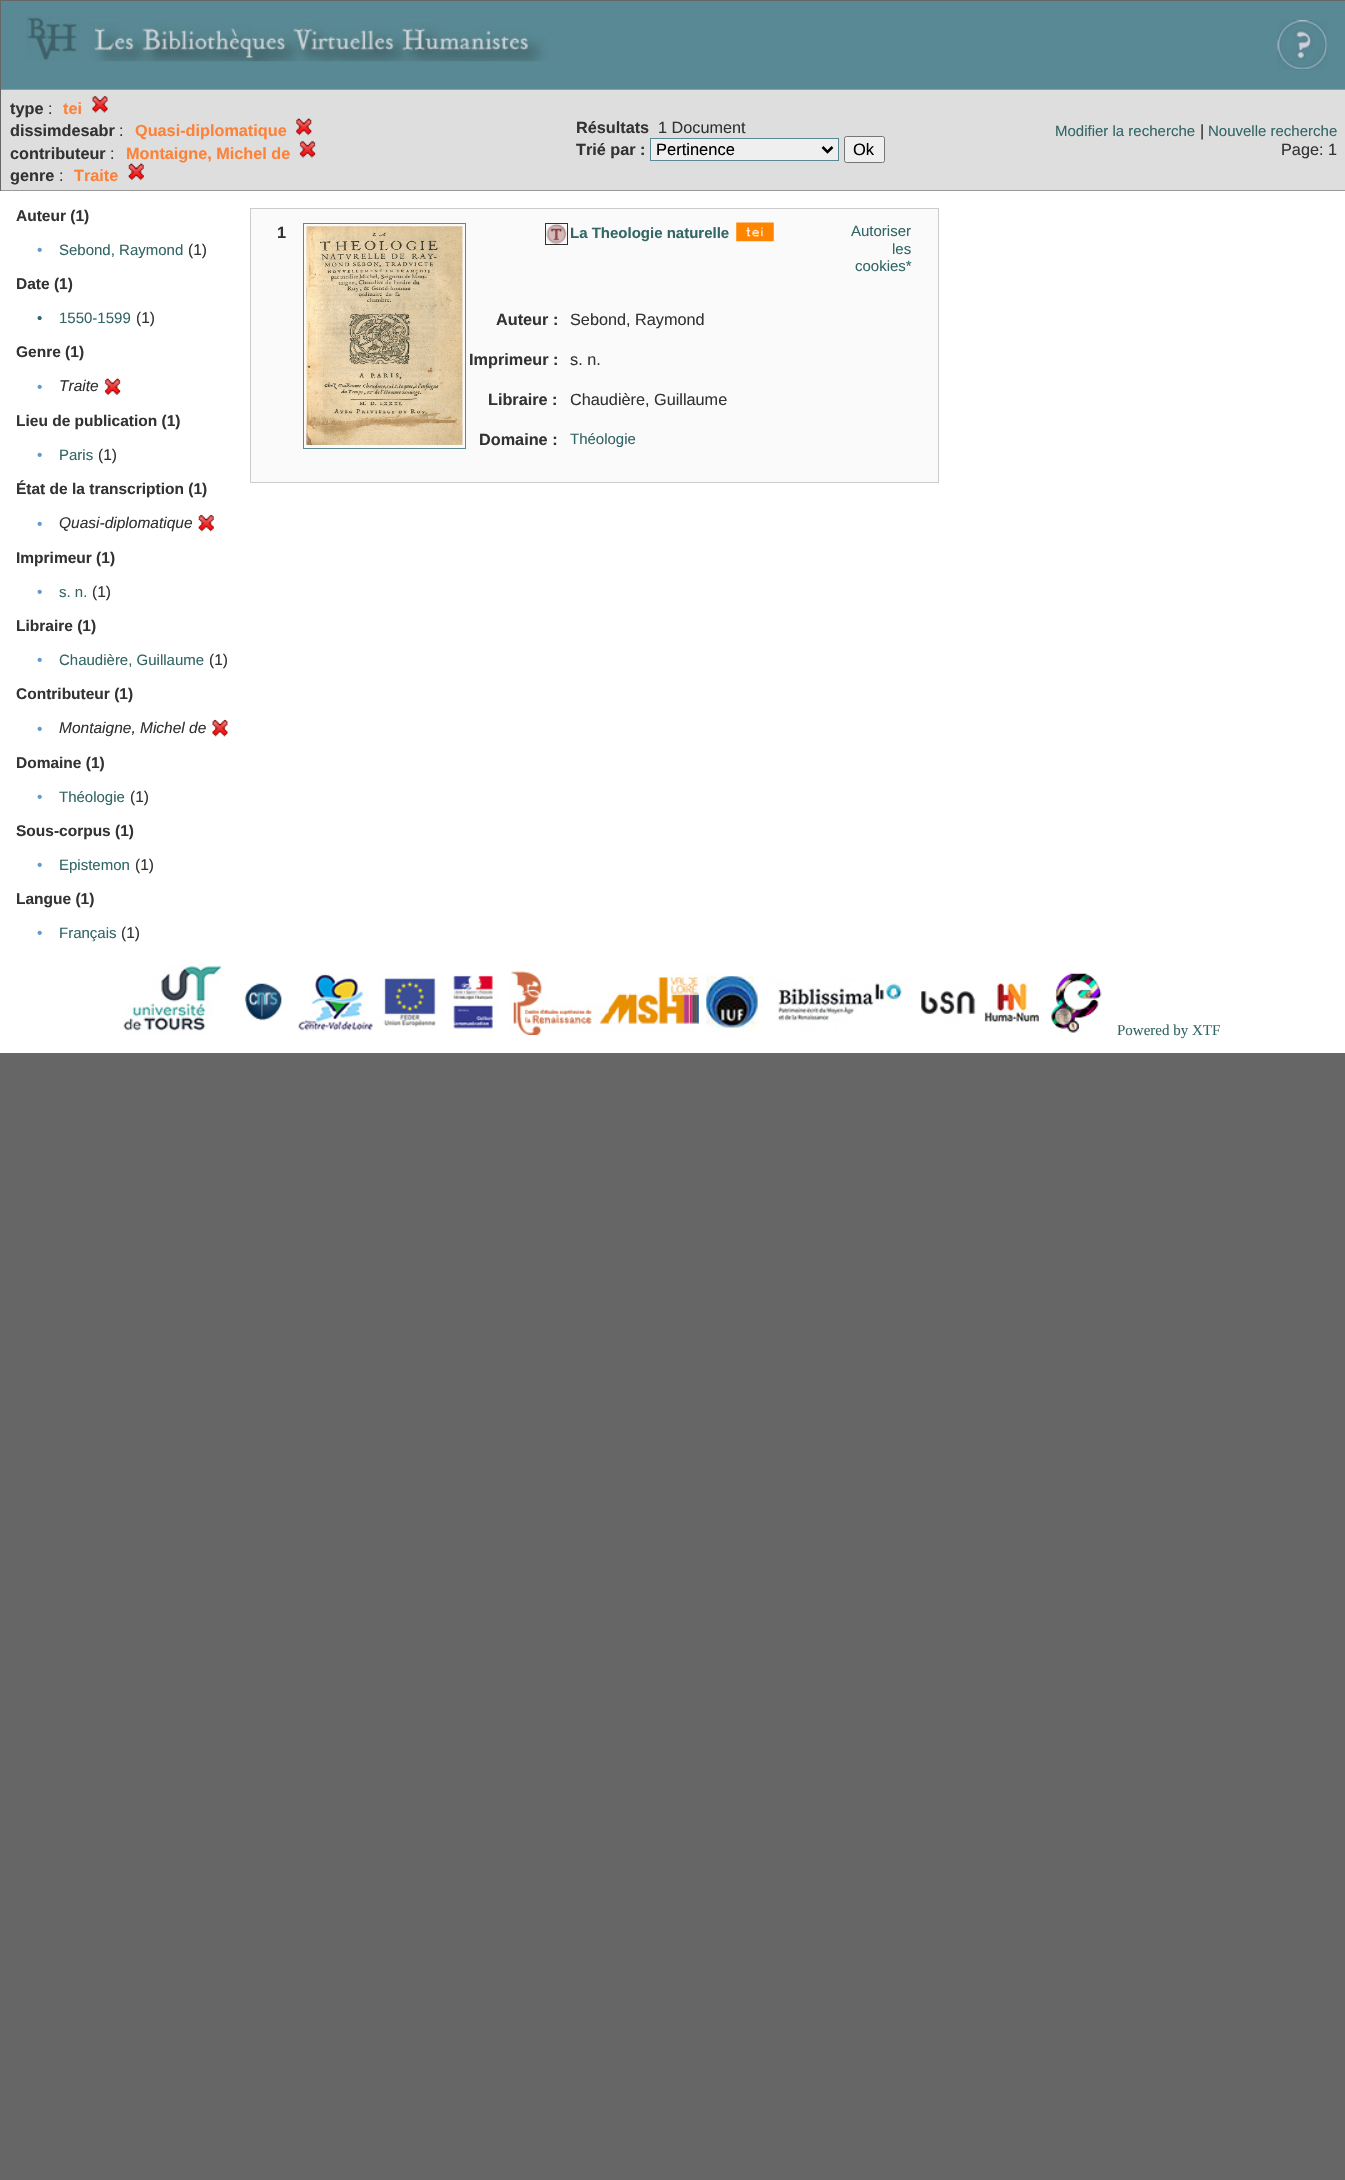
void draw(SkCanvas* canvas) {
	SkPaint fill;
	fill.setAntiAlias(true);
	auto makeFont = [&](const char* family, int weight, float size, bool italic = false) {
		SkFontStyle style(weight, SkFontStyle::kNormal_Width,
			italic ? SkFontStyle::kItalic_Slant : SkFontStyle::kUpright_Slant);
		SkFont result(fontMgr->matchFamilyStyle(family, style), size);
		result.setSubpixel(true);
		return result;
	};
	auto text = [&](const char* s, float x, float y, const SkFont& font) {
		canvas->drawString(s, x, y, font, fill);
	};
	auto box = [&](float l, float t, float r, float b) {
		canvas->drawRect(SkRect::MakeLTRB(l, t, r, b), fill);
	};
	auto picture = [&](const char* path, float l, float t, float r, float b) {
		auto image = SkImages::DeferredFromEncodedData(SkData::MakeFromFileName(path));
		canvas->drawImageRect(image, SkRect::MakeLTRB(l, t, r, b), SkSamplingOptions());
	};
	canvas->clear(0xFF666666);
	fill.setColor(0xFF598995);
	box(1, 1, 1345, 89);
	picture("image0.png", 26, 15, 548, 62);
	picture("image1.png", 1277, 20, 1328, 70);
	fill.setColor(0xFFDEDEDF);
	box(1, 90, 1345, 190);
	fill.setColor(0xFF999999);
	box(0, 89, 1345, 90);
	box(0, 190, 1345, 191);
	fill.setColor(0xFF666666);
	box(0, 89, 1, 191);
	picture("image2.png", 92, 96, 108, 113);
	picture("image3.png", 296, 118, 312, 136);
	picture("image4.png", 299, 141, 316, 158);
	picture("image5.png", 128, 163, 144, 181);
	fill.setColor(0xFFEFEFEF);
	canvas->drawRect(SkRect::MakeLTRB(650.5f, 138.5f, 838.5f, 160.5f), fill);
	fill.setStyle(SkPaint::kStroke_Style);
	fill.setStrokeWidth(1);
	fill.setColor(0xFF598995);
	canvas->drawRect(SkRect::MakeLTRB(650.5f, 138.5f, 838.5f, 160.5f), fill);
	fill.setStrokeWidth(2.5f);
	fill.setColor(0xFF000000);
	canvas->drawPath(SkPathBuilder().moveTo(822.5f, 147).lineTo(827.5f, 152).lineTo(832.5f, 147).detach(), fill);
	fill.setStyle(SkPaint::kFill_Style);
	fill.setColor(0xFFEFEFEF);
	canvas->drawRoundRect(SkRect::MakeLTRB(844.5f, 136.5f, 884.5f, 162.5f), 2, 2, fill);
	fill.setStyle(SkPaint::kStroke_Style);
	fill.setStrokeWidth(1);
	fill.setColor(0xFF767676);
	canvas->drawRoundRect(SkRect::MakeLTRB(844.5f, 136.5f, 884.5f, 162.5f), 2, 2, fill);
	fill.setStyle(SkPaint::kFill_Style);
	fill.setColor(0xFFFFFFFF);
	box(0, 191, 1345, 1053);
	picture("image6.png", 104, 378, 121, 396);
	picture("image7.png", 198, 514, 214, 532);
	picture("image8.png", 212, 719, 228, 737);
	fill.setColor(0xFFFAFAFB);
	canvas->drawRect(SkRect::MakeLTRB(250.5f, 208.5f, 938.5f, 482.5f), fill);
	fill.setStyle(SkPaint::kStroke_Style);
	fill.setColor(0xFFCCCCCC);
	canvas->drawRect(SkRect::MakeLTRB(250.5f, 208.5f, 938.5f, 482.5f), fill);
	fill.setColor(0xFF598995);
	canvas->drawRect(SkRect::MakeLTRB(303.5f, 223.5f, 465.5f, 448.5f), fill);
	picture("image9.png", 306, 226, 463, 445);
	fill.setColor(0xFF333333);
	canvas->drawRect(SkRect::MakeLTRB(545.5f, 223.5f, 567.5f, 244.5f), fill);
	picture("image10.png", 546, 224, 567, 244);
	picture("image11.png", 736, 222, 774, 242);
	picture("image12.png", 123, 965, 1102, 1035);
	auto font1 = makeFont("Liberation Sans", 700, 16.25f);
	fill.setStyle(SkPaint::kFill_Style);
	text("type", 10, 114, font1);
	auto font2 = makeFont("Liberation Sans", 400, 16.25f);
	text(":", 48, 114, font2);
	fill.setColor(0xFFFD8239);
	text("tei", 63, 114, font1);
	fill.setColor(0xFF333333);
	text("dissimdesabr", 10, 136, font1);
	text(":", 119, 136, font2);
	fill.setColor(0xFFFD8239);
	text("Quasi-diplomatique", 135, 136, font1);
	fill.setColor(0xFF333333);
	text("contributeur", 10, 159, font1);
	text(":", 110, 159, font2);
	fill.setColor(0xFFFD8239);
	text("Montaigne, Michel de", 126, 159, font1);
	fill.setColor(0xFF333333);
	text("genre", 10, 181, font1);
	text(":", 59, 181, font2);
	fill.setColor(0xFFFD8239);
	text("Traite", 74, 181, font1);
	fill.setColor(0xFF333333);
	text("Résultats", 576, 133, font1);
	text("1 Document", 658, 133, font2);
	text("Trié par :", 576, 155, font1);
	auto font3 = makeFont("Liberation Sans", 400, 16.5f);
	fill.setColor(0xFF000000);
	text("Pertinence", 656, 155, font3);
	text("Ok", 853, 155, font3);
	auto font4 = makeFont("Liberation Sans", 400, 15);
	fill.setColor(0xFF336666);
	text("Modifier la recherche", 1055, 136, font4);
	fill.setColor(0xFF333333);
	text("|", 1200, 136, font2);
	fill.setColor(0xFF336666);
	text("Nouvelle recherche", 1208, 136, font4);
	fill.setColor(0xFF333333);
	text("Page: 1", 1281, 155, font2);
	auto font5 = makeFont("Liberation Sans", 700, 15.5f);
	text("Auteur (1)", 16, 221, font5);
	auto font6 = makeFont("Liberation Sans", 400, 15.5f);
	fill.setColor(0xFF6699CC);
	text("•", 37, 255, font6);
	fill.setColor(0xFF336666);
	text("Sebond, Raymond", 59, 255, font4);
	fill.setColor(0xFF333333);
	text("(1)", 188, 255, font6);
	text("Date (1)", 16, 289, font5);
	fill.setColor(0xFF336666);
	text("•", 37, 323, font4);
	text("1550-1599", 59, 323, font4);
	fill.setColor(0xFF333333);
	text("(1)", 136, 323, font6);
	text("Genre (1)", 16, 357, font5);
	fill.setColor(0xFF6699CC);
	text("•", 37, 392, font6);
	auto font7 = makeFont("Liberation Sans", 400, 15.5f, true);
	fill.setColor(0xFF333333);
	text("Traite", 59, 391, font7);
	text("Lieu de publication (1)", 16, 426, font5);
	fill.setColor(0xFF6699CC);
	text("•", 37, 460, font6);
	fill.setColor(0xFF336666);
	text("Paris", 59, 460, font4);
	fill.setColor(0xFF333333);
	text("(1)", 98, 460, font6);
	text("État de la transcription (1)", 16, 494, font5);
	fill.setColor(0xFF6699CC);
	text("•", 37, 529, font6);
	fill.setColor(0xFF333333);
	text("Quasi-diplomatique", 59, 528, font7);
	text("Imprimeur (1)", 16, 563, font5);
	fill.setColor(0xFF6699CC);
	text("•", 37, 597, font6);
	fill.setColor(0xFF336666);
	text("s. n.", 59, 597, font4);
	fill.setColor(0xFF333333);
	text("(1)", 92, 597, font6);
	text("Libraire (1)", 16, 631, font5);
	fill.setColor(0xFF6699CC);
	text("•", 37, 665, font6);
	fill.setColor(0xFF336666);
	text("Chaudière, Guillaume", 59, 665, font4);
	fill.setColor(0xFF333333);
	text("(1)", 209, 665, font6);
	text("Contributeur (1)", 16, 699, font5);
	fill.setColor(0xFF6699CC);
	text("•", 37, 734, font6);
	fill.setColor(0xFF333333);
	text("Montaigne, Michel de", 59, 733, font7);
	text("Domaine (1)", 16, 768, font5);
	fill.setColor(0xFF6699CC);
	text("•", 37, 802, font6);
	fill.setColor(0xFF336666);
	text("Théologie", 59, 802, font4);
	fill.setColor(0xFF333333);
	text("(1)", 130, 802, font6);
	text("Sous-corpus (1)", 16, 836, font5);
	fill.setColor(0xFF6699CC);
	text("•", 37, 870, font6);
	fill.setColor(0xFF336666);
	text("Epistemon", 59, 870, font4);
	fill.setColor(0xFF333333);
	text("(1)", 135, 870, font6);
	text("Langue (1)", 16, 904, font5);
	fill.setColor(0xFF6699CC);
	text("•", 37, 938, font6);
	fill.setColor(0xFF336666);
	text("Français", 59, 938, font4);
	fill.setColor(0xFF333333);
	text("(1)", 121, 938, font6);
	text("1", 277, 238, font1);
	auto font8 = makeFont("Liberation Sans", 700, 15);
	fill.setColor(0xFF336666);
	text("La Theologie naturelle", 570, 238, font8);
	text("Autoriser", 851, 236, font4);
	text("les", 892, 254, font4);
	text("cookies*", 855, 271, font4);
	fill.setColor(0xFF333333);
	text("Auteur :", 496, 325, font1);
	text("Sebond, Raymond", 570, 325, font2);
	text("Imprimeur :", 469, 365, font1);
	text("s. n.", 570, 365, font2);
	text("Libraire :", 488, 405, font1);
	text("Chaudière, Guillaume", 570, 405, font2);
	text("Domaine :", 479, 445, font1);
	fill.setColor(0xFF336666);
	text("Théologie", 570, 444, font4);
	auto font9 = makeFont("Liberation Serif", 400, 15);
	text("Powered by XTF", 1117, 1035, font9);
}
